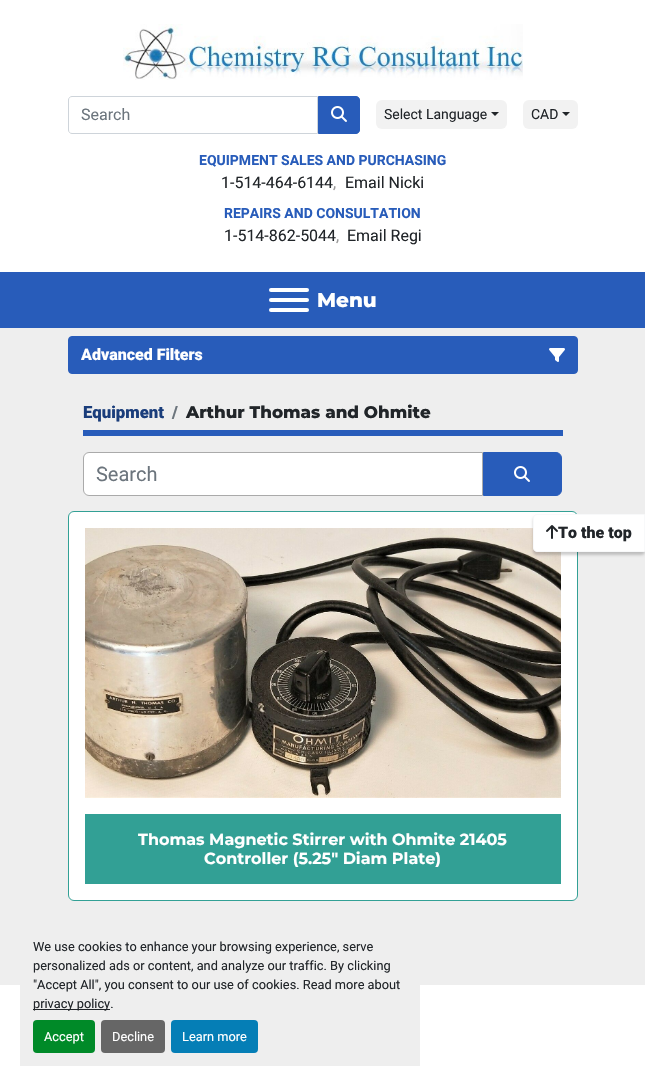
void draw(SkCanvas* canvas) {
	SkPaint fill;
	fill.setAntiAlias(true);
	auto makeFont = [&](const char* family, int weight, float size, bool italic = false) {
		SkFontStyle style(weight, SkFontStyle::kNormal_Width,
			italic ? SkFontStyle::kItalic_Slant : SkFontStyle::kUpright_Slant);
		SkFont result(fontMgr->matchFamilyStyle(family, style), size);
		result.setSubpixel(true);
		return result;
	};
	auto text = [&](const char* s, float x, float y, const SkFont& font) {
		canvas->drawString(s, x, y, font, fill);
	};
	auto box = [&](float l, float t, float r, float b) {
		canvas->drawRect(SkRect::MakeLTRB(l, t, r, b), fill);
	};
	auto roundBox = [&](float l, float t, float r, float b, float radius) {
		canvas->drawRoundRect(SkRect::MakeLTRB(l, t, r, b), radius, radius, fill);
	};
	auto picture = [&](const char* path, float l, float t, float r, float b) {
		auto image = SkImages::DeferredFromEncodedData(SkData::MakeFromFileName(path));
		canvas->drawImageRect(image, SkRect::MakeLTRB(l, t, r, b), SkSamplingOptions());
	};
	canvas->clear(0xFFEEEEEE);
	fill.setColor(0xFFFFFFFF);
	box(0, 0, 645, 272);
	picture("image0.png", 123, 24, 523, 80);
	fill.setStyle(SkPaint::kStroke_Style);
	fill.setStrokeWidth(1);
	fill.setColor(0xFFCED4DA);
	canvas->drawPath(SkPathBuilder().moveTo(72, 96.5f).lineTo(317.5f, 96.5f).lineTo(317.5f, 133.5f).lineTo(72, 133.5f).cubicTo(70, 133.5f, 68.5f, 132, 68.5f, 130).lineTo(68.5f, 100).cubicTo(68.5f, 98, 70, 96.5f, 72, 96.5f).close().detach(), fill);
	fill.setStyle(SkPaint::kFill_Style);
	fill.setColor(0xFF285CBA);
	canvas->drawPath(SkPathBuilder().moveTo(318.5f, 96.5f).lineTo(356, 96.5f).cubicTo(358, 96.5f, 359.5f, 98, 359.5f, 100).lineTo(359.5f, 130).cubicTo(359.5f, 132, 358, 133.5f, 356, 133.5f).lineTo(318.5f, 133.5f).close().detach(), fill);
	fill.setStyle(SkPaint::kStroke_Style);
	canvas->drawPath(SkPathBuilder().moveTo(318.5f, 96.5f).lineTo(356, 96.5f).cubicTo(358, 96.5f, 359.5f, 98, 359.5f, 100).lineTo(359.5f, 130).cubicTo(359.5f, 132, 358, 133.5f, 356, 133.5f).lineTo(318.5f, 133.5f).close().detach(), fill);
	picture("image1.png", 331, 106, 347, 122);
	fill.setStyle(SkPaint::kFill_Style);
	fill.setColor(0xFFF2F2F2);
	roundBox(376, 100, 507, 129, 6);
	fill.setColor(0xFF212529);
	canvas->drawPath(SkPathBuilder().moveTo(491, 112).lineTo(499, 112).lineTo(495, 116).close().detach(), fill);
	fill.setColor(0xFFF2F2F2);
	roundBox(523, 100, 578, 129, 6);
	fill.setColor(0xFF212529);
	canvas->drawPath(SkPathBuilder().moveTo(562, 112).lineTo(570, 112).lineTo(566, 116).close().detach(), fill);
	fill.setColor(0xFF285CBA);
	box(0, 272, 645, 328);
	fill.setColor(0xFFFFFFFF);
	roundBox(269, 298, 309, 302, 2);
	roundBox(269, 288, 309, 292, 2);
	roundBox(269, 308, 309, 312, 2);
	fill.setColor(0xFF285CBA);
	canvas->drawRoundRect(SkRect::MakeLTRB(68.5f, 336.5f, 577.5f, 373.5f), 3.5f, 3.5f, fill);
	fill.setStyle(SkPaint::kStroke_Style);
	canvas->drawRoundRect(SkRect::MakeLTRB(68.5f, 336.5f, 577.5f, 373.5f), 3.5f, 3.5f, fill);
	picture("image2.png", 549, 348, 565, 362);
	fill.setStyle(SkPaint::kFill_Style);
	box(83, 430, 563, 436);
	fill.setColor(0xFFFFFFFF);
	canvas->drawPath(SkPathBuilder().moveTo(89, 452.5f).lineTo(482.5f, 452.5f).lineTo(482.5f, 495.5f).lineTo(89, 495.5f).cubicTo(86, 495.5f, 83.5f, 493, 83.5f, 490).lineTo(83.5f, 458).cubicTo(83.5f, 455, 86, 452.5f, 89, 452.5f).close().detach(), fill);
	fill.setStyle(SkPaint::kStroke_Style);
	fill.setColor(0xFFAAAAAA);
	canvas->drawPath(SkPathBuilder().moveTo(89, 452.5f).lineTo(482.5f, 452.5f).lineTo(482.5f, 495.5f).lineTo(89, 495.5f).cubicTo(86, 495.5f, 83.5f, 493, 83.5f, 490).lineTo(83.5f, 458).cubicTo(83.5f, 455, 86, 452.5f, 89, 452.5f).close().detach(), fill);
	fill.setStyle(SkPaint::kFill_Style);
	fill.setColor(0xFF285CBA);
	canvas->drawPath(SkPathBuilder().moveTo(483.5f, 452.5f).lineTo(556, 452.5f).cubicTo(559, 452.5f, 561.5f, 455, 561.5f, 458).lineTo(561.5f, 490).cubicTo(561.5f, 493, 559, 495.5f, 556, 495.5f).lineTo(483.5f, 495.5f).close().detach(), fill);
	fill.setStyle(SkPaint::kStroke_Style);
	canvas->drawPath(SkPathBuilder().moveTo(483.5f, 452.5f).lineTo(556, 452.5f).cubicTo(559, 452.5f, 561.5f, 455, 561.5f, 458).lineTo(561.5f, 490).cubicTo(561.5f, 493, 559, 495.5f, 556, 495.5f).lineTo(483.5f, 495.5f).close().detach(), fill);
	picture("image1.png", 514, 466, 530, 482);
	fill.setStyle(SkPaint::kFill_Style);
	fill.setColor(0xFFFFFFFF);
	canvas->drawRoundRect(SkRect::MakeLTRB(68.5f, 511.5f, 577.5f, 900.5f), 5.5f, 5.5f, fill);
	fill.setStyle(SkPaint::kStroke_Style);
	fill.setColor(0xFF32A095);
	canvas->drawRoundRect(SkRect::MakeLTRB(68.5f, 511.5f, 577.5f, 900.5f), 5.5f, 5.5f, fill);
	picture("image4.png", 85, 528, 561, 798);
	fill.setStyle(SkPaint::kFill_Style);
	fill.setColor(0x33000000);
	fill.setMaskFilter(SkMaskFilter::MakeBlur(kNormal_SkBlurStyle, 1.5f));
	canvas->drawRoundRect(SkRect::MakeLTRB(533, 517, 645, 555), 4, 4, fill);
	fill.setMaskFilter(nullptr);
	fill.setColor(0xFFFFFFFF);
	canvas->drawPath(SkPathBuilder().moveTo(537, 514.5f).lineTo(644.5f, 514.5f).lineTo(644.5f, 551.5f).lineTo(537, 551.5f).cubicTo(535, 551.5f, 533.5f, 550, 533.5f, 548).lineTo(533.5f, 518).cubicTo(533.5f, 516, 535, 514.5f, 537, 514.5f).close().detach(), fill);
	fill.setStyle(SkPaint::kStroke_Style);
	fill.setColor(0xFFF8F9FA);
	canvas->drawPath(SkPathBuilder().moveTo(537, 514.5f).lineTo(644.5f, 514.5f).lineTo(644.5f, 551.5f).lineTo(537, 551.5f).cubicTo(535, 551.5f, 533.5f, 550, 533.5f, 548).lineTo(533.5f, 518).cubicTo(533.5f, 516, 535, 514.5f, 537, 514.5f).close().detach(), fill);
	picture("image3.png", 546, 525, 558, 539);
	fill.setStyle(SkPaint::kFill_Style);
	fill.setColor(0xFF32A095);
	box(85, 814, 561, 884);
	fill.setColor(0xFFFFFFFF);
	box(0, 985, 645, 1066);
	fill.setColor(0xFFEEEEEE);
	box(20, 985, 420, 1066);
	fill.setColor(0xFF212529);
	box(33, 1009, 110, 1010);
	fill.setColor(0xFF008A28);
	roundBox(33, 1020, 95, 1053, 4);
	fill.setColor(0xFF666666);
	roundBox(101, 1020, 165, 1053, 4);
	fill.setColor(0xFF057EB6);
	roundBox(171, 1020, 258, 1053, 4);
	auto font1 = makeFont("Roboto", 400, 16);
	fill.setColor(0xFF6C757D);
	text("Search", 81, 120, font1);
	auto font2 = makeFont("Roboto", 400, 14);
	fill.setColor(0xFF212529);
	text("Select Language", 384, 119, font2);
	text("CAD", 531, 119, font2);
	auto font3 = makeFont("Roboto", 700, 14);
	fill.setColor(0xFF285CBA);
	text("EQUIPMENT SALES AND PURCHASING", 199, 165, font3);
	fill.setColor(0xFF212529);
	text("1-514-464-6144", 221, 188, font1);
	fill.setColor(0xFF999999);
	text(",", 333, 188, font1);
	fill.setColor(0xFF212529);
	text("Email Nicki", 345, 188, font1);
	fill.setColor(0xFF285CBA);
	text("REPAIRS AND CONSULTATION", 224, 218, font3);
	fill.setColor(0xFF212529);
	text("1-514-862-5044", 224, 241, font1);
	fill.setColor(0xFF999999);
	text(",", 336, 241, font1);
	fill.setColor(0xFF212529);
	text("Email Regi", 347, 241, font1);
	auto font4 = makeFont("Montserrat", 100, 20);
	fill.setColor(0xFFFFFFFF);
	text("Menu", 317, 307, font4);
	auto font5 = makeFont("Roboto", 900, 16);
	text("Advanced Filters", 81, 360, font5);
	auto font6 = makeFont("Roboto", 900, 16.75f);
	fill.setColor(0xFF1A3D7B);
	text("Equipment", 83, 418, font6);
	fill.setColor(0xFF6C757D);
	text("/", 172, 418, font6);
	auto font7 = makeFont("Montserrat", 100, 16.75f);
	fill.setColor(0xFF212529);
	text("Arthur Thomas and Ohmite", 186, 418, font7);
	auto font8 = makeFont("Roboto", 400, 20);
	fill.setColor(0xFF6C757D);
	text("Search", 96, 481, font8);
	fill.setColor(0xFF212529);
	text("To the top", 558, 538, font5);
	auto font9 = makeFont("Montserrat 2", 100, 16);
	fill.setColor(0xFFFFFFFF);
	text("Thomas Magnetic Stirrer with Ohmite 21405", 138, 845, font9);
	text("Controller (5.25\" Diam Plate)", 204, 864, font9);
	auto font10 = makeFont("Roboto", 400, 12.8f);
	fill.setColor(0xFF212529);
	text("We use cookies to enhance your browsing experience, serve", 33, 951, font10);
	text("personalized ads or content, and analyze our traffic. By clicking", 33, 970, font10);
	text("\"Accept All\", you consent to our use of cookies. Read more about", 33, 989, font10);
	text("privacy policy.", 33, 1008, font10);
	fill.setColor(0xFFFFFFFF);
	text("Accept", 44, 1041, font10);
	text("Decline", 112, 1041, font10);
	text("Learn more", 182, 1041, font10);
}
